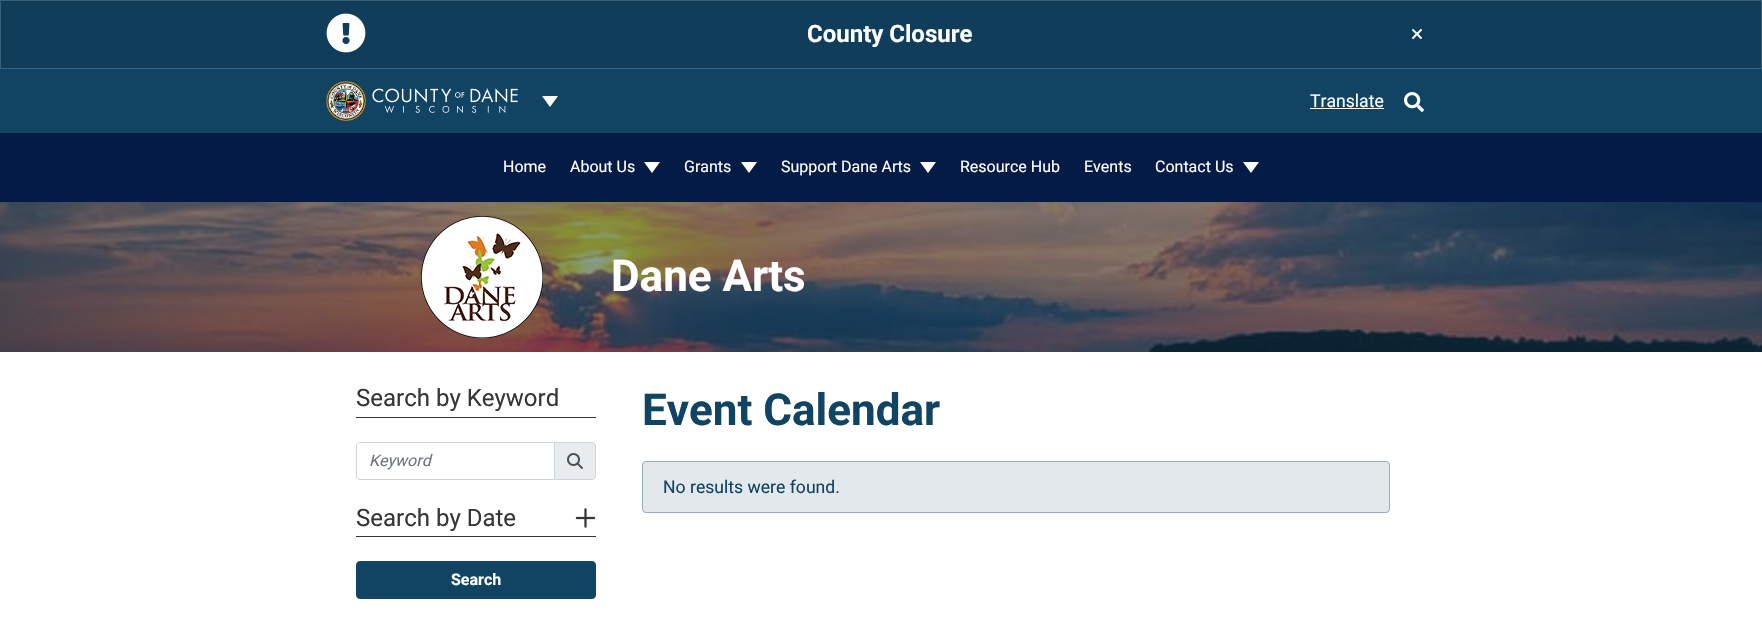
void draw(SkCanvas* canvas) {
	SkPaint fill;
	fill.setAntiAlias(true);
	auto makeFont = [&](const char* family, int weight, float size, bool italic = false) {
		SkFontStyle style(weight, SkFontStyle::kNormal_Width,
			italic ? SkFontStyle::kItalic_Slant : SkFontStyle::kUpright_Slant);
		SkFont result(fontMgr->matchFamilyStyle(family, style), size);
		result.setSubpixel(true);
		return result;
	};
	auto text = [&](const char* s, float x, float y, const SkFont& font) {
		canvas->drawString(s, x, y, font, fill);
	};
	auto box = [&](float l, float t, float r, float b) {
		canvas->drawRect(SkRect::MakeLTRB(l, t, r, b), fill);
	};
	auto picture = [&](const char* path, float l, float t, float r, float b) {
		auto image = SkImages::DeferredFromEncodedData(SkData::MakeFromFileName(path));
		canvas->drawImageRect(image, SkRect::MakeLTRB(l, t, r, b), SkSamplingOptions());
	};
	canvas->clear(0xFFFFFFFF);
	fill.setColor(0xFF103E5A);
	canvas->drawRect(SkRect::MakeLTRB(0.5f, 0.5f, 1761.5f, 68.5f), fill);
	fill.setStyle(SkPaint::kStroke_Style);
	fill.setStrokeWidth(1);
	fill.setColor(0xFF37617B);
	canvas->drawRect(SkRect::MakeLTRB(0.5f, 0.5f, 1761.5f, 68.5f), fill);
	picture("image0.png", 326, 13, 366, 53);
	picture("image1.png", 1412, 29, 1422, 39);
	fill.setStyle(SkPaint::kFill_Style);
	fill.setColor(0xFF114362);
	box(0, 69, 1762, 133);
	picture("image2.png", 326, 81, 366, 121);
	picture("image3.png", 372, 88, 518, 113);
	fill.setColor(0xFFFFFFFF);
	canvas->drawPath(SkPathBuilder().moveTo(542, 96).lineTo(558, 96).lineTo(550, 107).close().detach(), fill);
	box(1310, 108, 1384, 109);
	picture("image4.png", 1404, 92, 1424, 112);
	fill.setColor(0xFF041B45);
	box(0, 133, 1762, 202);
	fill.setColor(0xFFFFFFFF);
	canvas->drawPath(SkPathBuilder().moveTo(644, 162).lineTo(660, 162).lineTo(652, 173).close().detach(), fill);
	canvas->drawPath(SkPathBuilder().moveTo(741, 162).lineTo(757, 162).lineTo(749, 173).close().detach(), fill);
	canvas->drawPath(SkPathBuilder().moveTo(920, 162).lineTo(936, 162).lineTo(928, 173).close().detach(), fill);
	canvas->drawPath(SkPathBuilder().moveTo(1243, 162).lineTo(1259, 162).lineTo(1251, 173).close().detach(), fill);
	picture("image5.png", 0, 202, 1762, 352);
	picture("image6.png", 421, 216, 543, 338);
	fill.setColor(0xFF363636);
	box(356, 417, 596, 418);
	fill.setColor(0xFFE9ECEF);
	canvas->drawPath(SkPathBuilder().moveTo(554.5f, 442.5f).lineTo(592, 442.5f).cubicTo(594, 442.5f, 595.5f, 444, 595.5f, 446).lineTo(595.5f, 476).cubicTo(595.5f, 478, 594, 479.5f, 592, 479.5f).lineTo(554.5f, 479.5f).close().detach(), fill);
	fill.setStyle(SkPaint::kStroke_Style);
	fill.setColor(0xFFCED4DA);
	canvas->drawPath(SkPathBuilder().moveTo(554.5f, 442.5f).lineTo(592, 442.5f).cubicTo(594, 442.5f, 595.5f, 444, 595.5f, 446).lineTo(595.5f, 476).cubicTo(595.5f, 478, 594, 479.5f, 592, 479.5f).lineTo(554.5f, 479.5f).close().detach(), fill);
	canvas->drawPath(SkPathBuilder().moveTo(360, 442.5f).lineTo(554.5f, 442.5f).lineTo(554.5f, 479.5f).lineTo(360, 479.5f).cubicTo(358, 479.5f, 356.5f, 478, 356.5f, 476).lineTo(356.5f, 446).cubicTo(356.5f, 444, 358, 442.5f, 360, 442.5f).close().detach(), fill);
	picture("image7.png", 567, 453, 583, 469);
	fill.setStyle(SkPaint::kFill_Style);
	fill.setColor(0xFF363636);
	box(356, 536, 596, 537);
	picture("image8.png", 575, 508, 596, 528);
	fill.setColor(0xFF114362);
	canvas->drawRoundRect(SkRect::MakeLTRB(356.5f, 561.5f, 595.5f, 598.5f), 3.5f, 3.5f, fill);
	fill.setStyle(SkPaint::kStroke_Style);
	canvas->drawRoundRect(SkRect::MakeLTRB(356.5f, 561.5f, 595.5f, 598.5f), 3.5f, 3.5f, fill);
	fill.setStyle(SkPaint::kFill_Style);
	fill.setColor(0xFFE2E8EC);
	canvas->drawRoundRect(SkRect::MakeLTRB(642.5f, 461.5f, 1389.5f, 512.5f), 3.5f, 3.5f, fill);
	fill.setStyle(SkPaint::kStroke_Style);
	fill.setColor(0xFF96ACBA);
	canvas->drawRoundRect(SkRect::MakeLTRB(642.5f, 461.5f, 1389.5f, 512.5f), 3.5f, 3.5f, fill);
	auto font1 = makeFont("Roboto", 700, 24);
	fill.setStyle(SkPaint::kFill_Style);
	fill.setColor(0xFFFFFFFF);
	text("County Closure", 807, 42, font1);
	auto font2 = makeFont("Roboto", 400, 17.6f);
	text("Translate", 1310, 107, font2);
	auto font3 = makeFont("Roboto", 400, 16);
	text("Home", 503, 172, font3);
	text("About Us", 570, 172, font3);
	text("Grants", 684, 172, font3);
	text("Support Dane Arts", 781, 172, font3);
	text("Resource Hub", 960, 172, font3);
	text("Events", 1084, 172, font3);
	text("Contact Us", 1155, 172, font3);
	auto font4 = makeFont("Roboto", 700, 44);
	text("Dane Arts", 611, 291, font4);
	auto font5 = makeFont("Roboto", 400, 24);
	fill.setColor(0xFF363636);
	text("Search by Keyword", 356, 406, font5);
	auto font6 = makeFont("Roboto", 400, 16, true);
	fill.setColor(0xFF6C757D);
	text("Keyword", 369, 466, font6);
	fill.setColor(0xFF363636);
	text("Search by Date", 356, 526, font5);
	auto font7 = makeFont("Roboto", 700, 16);
	fill.setColor(0xFFFFFFFF);
	text("Search", 451, 585, font7);
	fill.setColor(0xFF114362);
	text("Event Calendar", 642, 425, font4);
	text("No results were found.", 663, 493, font2);
}
